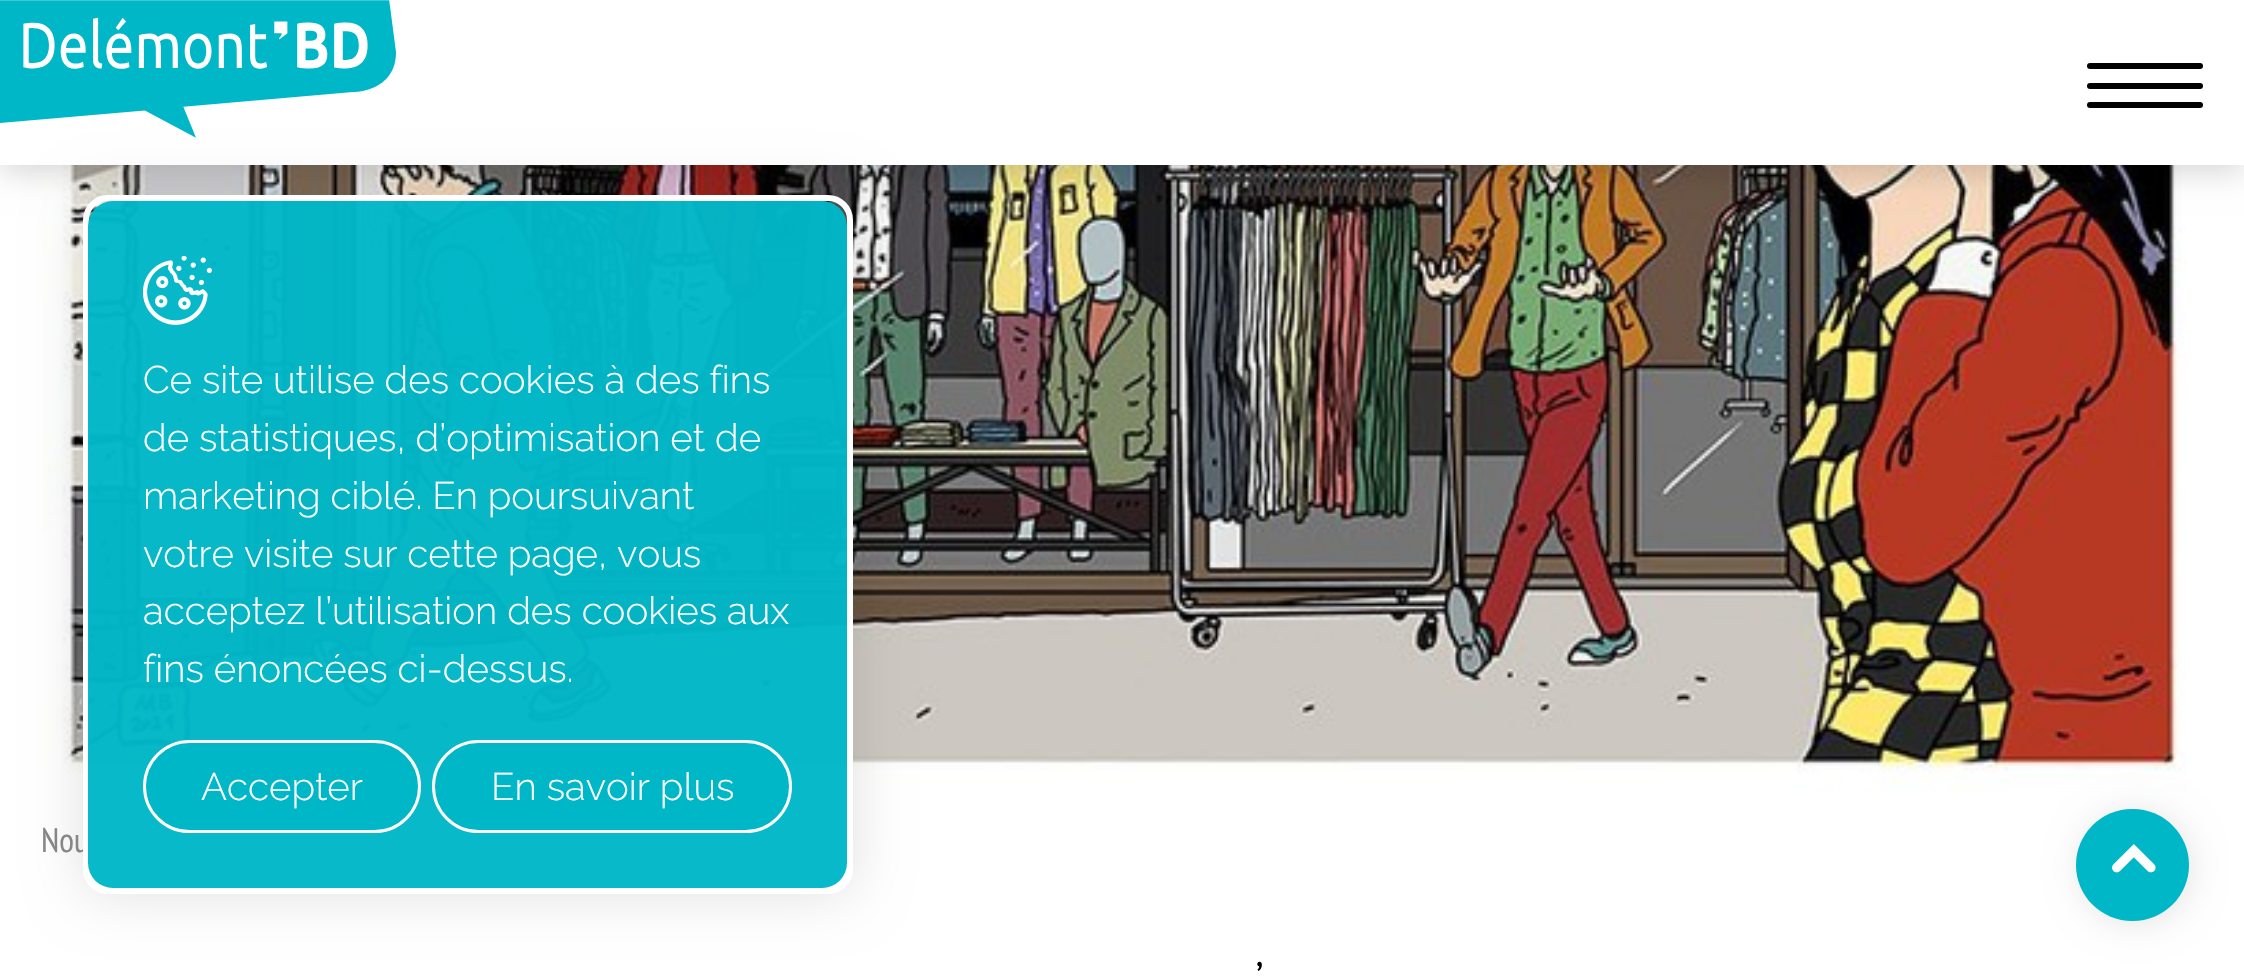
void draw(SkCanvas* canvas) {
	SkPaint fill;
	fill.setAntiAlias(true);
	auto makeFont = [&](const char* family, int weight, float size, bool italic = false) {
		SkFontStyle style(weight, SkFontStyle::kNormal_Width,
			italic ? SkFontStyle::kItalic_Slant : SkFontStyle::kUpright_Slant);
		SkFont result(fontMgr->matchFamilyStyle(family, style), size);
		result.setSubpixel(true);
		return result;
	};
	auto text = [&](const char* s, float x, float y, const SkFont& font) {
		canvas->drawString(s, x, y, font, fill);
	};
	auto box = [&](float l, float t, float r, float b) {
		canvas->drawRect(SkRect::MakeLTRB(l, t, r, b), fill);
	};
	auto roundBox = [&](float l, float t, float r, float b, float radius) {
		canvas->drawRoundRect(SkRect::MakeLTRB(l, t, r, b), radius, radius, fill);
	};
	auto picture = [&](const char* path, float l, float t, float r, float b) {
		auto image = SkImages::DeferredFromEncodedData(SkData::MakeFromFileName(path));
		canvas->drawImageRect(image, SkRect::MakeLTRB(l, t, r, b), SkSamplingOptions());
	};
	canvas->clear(0xFFFFFFFF);
	picture("image2.png", 42, 165, 2186, 792);
	fill.setColor(0x26000000);
	fill.setMaskFilter(SkMaskFilter::MakeBlur(kNormal_SkBlurStyle, 14));
	canvas->drawRect(SkRect::MakeLTRB(0, 8, 2244, 173), fill);
	fill.setMaskFilter(nullptr);
	fill.setColor(0xFFFFFFFF);
	box(0, 0, 2244, 165);
	picture("image1.png", 0, 0, 396, 138);
	canvas->save();
	canvas->clipPath(SkPathBuilder(SkPathFillType::kEvenOdd).moveTo(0, 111).lineTo(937, 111).lineTo(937, 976).lineTo(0, 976).close().moveTo(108, 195).lineTo(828, 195).cubicTo(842, 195, 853, 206, 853, 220).lineTo(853, 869).cubicTo(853, 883, 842, 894, 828, 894).lineTo(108, 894).cubicTo(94, 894, 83, 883, 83, 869).lineTo(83, 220).cubicTo(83, 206, 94, 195, 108, 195).close().detach(), true);
	fill.setColor(0x1F000000);
	fill.setMaskFilter(SkMaskFilter::MakeBlur(kNormal_SkBlurStyle, 27.5f));
	canvas->drawRoundRect(SkRect::MakeLTRB(83, 195, 853, 894), 25, 25, fill);
	fill.setMaskFilter(nullptr);
	canvas->restore();
	fill.setColor(0xFF000000);
	roundBox(2087, 63, 2203, 69, 3);
	roundBox(2087, 83, 2203, 89, 3);
	roundBox(2087, 102, 2203, 108, 3);
	fill.setColor(0x1A000000);
	fill.setMaskFilter(SkMaskFilter::MakeBlur(kNormal_SkBlurStyle, 16.5f));
	canvas->drawRoundRect(SkRect::MakeLTRB(2079, 811, 2192, 924), 56.5f, 56.5f, fill);
	fill.setMaskFilter(nullptr);
	fill.setColor(0xFF00B7C7);
	roundBox(2076, 809, 2189, 921, 56);
	picture("image3.png", 2112, 844, 2156, 873);
	auto font1 = makeFont("PT Sans Narrow", 400, 34);
	fill.setColor(0xFF868686);
	text("Nou", 41, 852, font1);
	fill.setStyle(SkPaint::kStroke_Style);
	fill.setStrokeWidth(6);
	fill.setColor(0xFFFFFFFF);
	canvas->drawRoundRect(SkRect::MakeLTRB(86, 198, 850, 891), 22, 22, fill);
	fill.setStyle(SkPaint::kFill_Style);
	fill.setColor(0xF700B7C7);
	roundBox(88, 201, 847, 888, 25);
	fill.setColor(0xFF00B7C7);
	canvas->drawRoundRect(SkRect::MakeLTRB(433.5f, 741.5f, 790.5f, 831.5f), 45, 45, fill);
	fill.setStyle(SkPaint::kStroke_Style);
	fill.setStrokeWidth(3);
	fill.setColor(0xFFFFFFFF);
	canvas->drawRoundRect(SkRect::MakeLTRB(433.5f, 741.5f, 790.5f, 831.5f), 45, 45, fill);
	auto font2 = makeFont("Raleway", 300, 38.5f);
	fill.setStyle(SkPaint::kFill_Style);
	text("En savoir plus", 491, 800, font2);
	fill.setColor(0xFF00B7C7);
	canvas->drawRoundRect(SkRect::MakeLTRB(144.5f, 741.5f, 419.5f, 831.5f), 45, 45, fill);
	fill.setStyle(SkPaint::kStroke_Style);
	fill.setColor(0xFFFFFFFF);
	canvas->drawRoundRect(SkRect::MakeLTRB(144.5f, 741.5f, 419.5f, 831.5f), 45, 45, fill);
	fill.setStyle(SkPaint::kFill_Style);
	text("Accepter", 201, 800, font2);
	text("fins énoncées ci-dessus.", 143, 682, font2);
	text("acceptez l’utilisation des cookies aux", 143, 624, font2);
	text("votre visite sur cette page, vous", 143, 567, font2);
	text("marketing ciblé. En poursuivant", 143, 509, font2);
	text("de statistiques, d’optimisation et de", 143, 451, font2);
	text("Ce site utilise des cookies à des fins", 143, 393, font2);
	picture("image0.png", 143, 256, 212, 325);
	auto font3 = makeFont("PT Sans Narrow", 400, 44);
	fill.setColor(0xFF000000);
	text("’", 1256, 993, font3);
}
